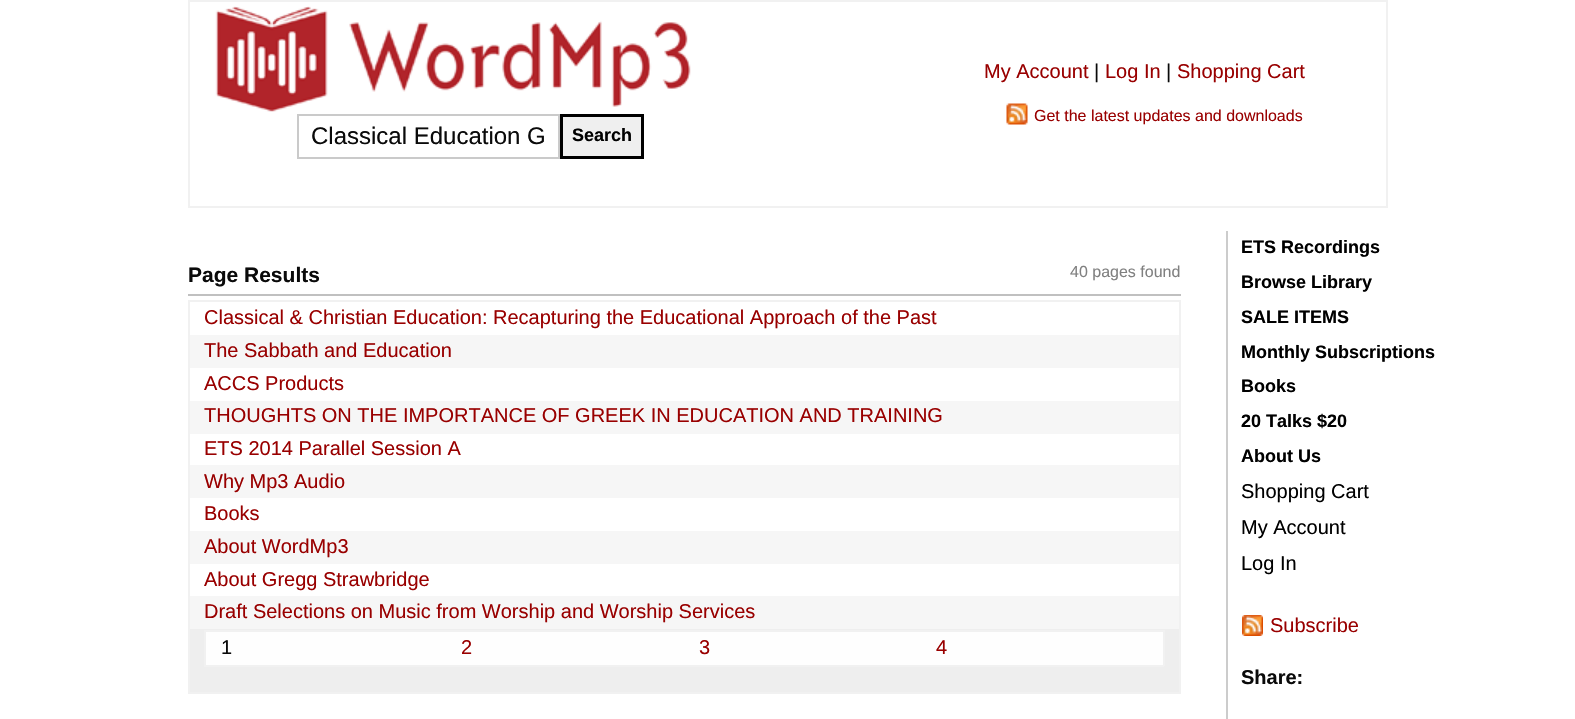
void draw(SkCanvas* canvas) {
	SkPaint fill;
	fill.setAntiAlias(true);
	auto makeFont = [&](const char* family, int weight, float size, bool italic = false) {
		SkFontStyle style(weight, SkFontStyle::kNormal_Width,
			italic ? SkFontStyle::kItalic_Slant : SkFontStyle::kUpright_Slant);
		SkFont result(fontMgr->matchFamilyStyle(family, style), size);
		result.setSubpixel(true);
		return result;
	};
	auto text = [&](const char* s, float x, float y, const SkFont& font) {
		canvas->drawString(s, x, y, font, fill);
	};
	auto box = [&](float l, float t, float r, float b) {
		canvas->drawRect(SkRect::MakeLTRB(l, t, r, b), fill);
	};
	auto picture = [&](const char* path, float l, float t, float r, float b) {
		auto image = SkImages::DeferredFromEncodedData(SkData::MakeFromFileName(path));
		canvas->drawImageRect(image, SkRect::MakeLTRB(l, t, r, b), SkSamplingOptions());
	};
	canvas->clear(0xFFFFFFFF);
	fill.setColor(0xFFF1F1F1);
	box(188, 0, 1388, 2);
	box(1386, 0, 1388, 207);
	box(188, 206, 1388, 208);
	box(188, 0, 190, 207);
	picture("image0.png", 1006, 103, 1028, 125);
	picture("image1.png", 215, 6, 691, 112);
	fill.setStyle(SkPaint::kStroke_Style);
	fill.setStrokeWidth(2);
	fill.setColor(0xFFCACACA);
	canvas->drawRect(SkRect::MakeLTRB(298, 115, 559, 158), fill);
	fill.setStyle(SkPaint::kFill_Style);
	fill.setColor(0xFFEFEFEF);
	canvas->drawRect(SkRect::MakeLTRB(561.5f, 115.5f, 642.5f, 157.5f), fill);
	fill.setStyle(SkPaint::kStroke_Style);
	fill.setStrokeWidth(3);
	fill.setColor(0xFF000000);
	canvas->drawRect(SkRect::MakeLTRB(561.5f, 115.5f, 642.5f, 157.5f), fill);
	fill.setStyle(SkPaint::kFill_Style);
	fill.setColor(0xFFC0C0C0);
	box(188, 294, 1181, 296);
	fill.setColor(0xFFF1F1F1);
	box(188, 300, 1181, 302);
	box(1179, 300, 1181, 693);
	box(188, 692, 1181, 694);
	box(188, 300, 190, 693);
	fill.setColor(0xFFF6F6F6);
	box(190, 335, 1179, 368);
	box(190, 401, 1179, 434);
	box(190, 465, 1179, 498);
	box(190, 531, 1179, 564);
	box(190, 596, 1179, 629);
	fill.setColor(0xFFEEEEEE);
	box(190, 629, 1179, 692);
	fill.setColor(0xFFFEFEFE);
	box(206, 632, 1163, 665);
	fill.setColor(0xFFF1F1F1);
	box(204, 630, 1164, 632);
	box(1163, 630, 1165, 666);
	box(204, 665, 1164, 667);
	box(204, 630, 206, 666);
	fill.setColor(0xFFCCCCCC);
	box(1226, 231, 1228, 719);
	picture("image2.png", 1242, 615, 1263, 636);
	auto font1 = makeFont("Liberation Sans", 400, 20);
	fill.setColor(0xFF990000);
	text("My Account", 984, 78, font1);
	fill.setColor(0xFF0A0A0A);
	text("|", 1094, 78, font1);
	fill.setColor(0xFF990000);
	text("Log In", 1105, 78, font1);
	fill.setColor(0xFF0A0A0A);
	text("|", 1166, 78, font1);
	fill.setColor(0xFF990000);
	text("Shopping Cart", 1177, 78, font1);
	auto font2 = makeFont("Liberation Sans", 400, 16);
	text("Get the latest updates and downloads", 1034, 121, font2);
	auto font3 = makeFont("Liberation Sans", 400, 24);
	fill.setColor(0xFF0A0A0A);
	text("Classical Education G", 311, 144, font3);
	auto font4 = makeFont("Liberation Sans", 700, 18);
	fill.setColor(0xFF000000);
	text("Search", 572, 141, font4);
	auto font5 = makeFont("Liberation Sans", 700, 21);
	fill.setColor(0xFF0A0A0A);
	text("Page Results", 188, 282, font5);
	fill.setColor(0xFF808080);
	text("40 pages found", 1070, 277, font2);
	fill.setColor(0xFF990000);
	text("Classical & Christian Education: Recapturing the Educational Approach of the Past", 204, 324, font1);
	text("The Sabbath and Education", 204, 357, font1);
	text("ACCS Products", 204, 390, font1);
	text("THOUGHTS ON THE IMPORTANCE OF GREEK IN EDUCATION AND TRAINING", 204, 422, font1);
	text("ETS 2014 Parallel Session A", 204, 455, font1);
	text("Why Mp3 Audio", 204, 488, font1);
	text("Books", 204, 520, font1);
	text("About WordMp3", 204, 553, font1);
	text("About Gregg Strawbridge", 204, 586, font1);
	text("Draft Selections on Music from Worship and Worship Services", 204, 618, font1);
	fill.setColor(0xFF0A0A0A);
	text("1", 221, 654, font1);
	fill.setColor(0xFF990000);
	text("2", 461, 654, font1);
	text("3", 699, 654, font1);
	text("4", 936, 654, font1);
	fill.setColor(0xFF000000);
	text("ETS Recordings", 1241, 253, font4);
	text("Browse Library", 1241, 288, font4);
	text("SALE ITEMS", 1241, 323, font4);
	text("Monthly Subscriptions", 1241, 358, font4);
	text("Books", 1241, 392, font4);
	text("20 Talks $20", 1241, 427, font4);
	text("About Us", 1241, 462, font4);
	text("Shopping Cart", 1241, 498, font1);
	text("My Account", 1241, 534, font1);
	text("Log In", 1241, 570, font1);
	fill.setColor(0xFF990000);
	text("Subscribe", 1270, 632, font1);
	auto font6 = makeFont("Liberation Sans", 700, 20);
	fill.setColor(0xFF0A0A0A);
	text("Share:", 1241, 684, font6);
}
